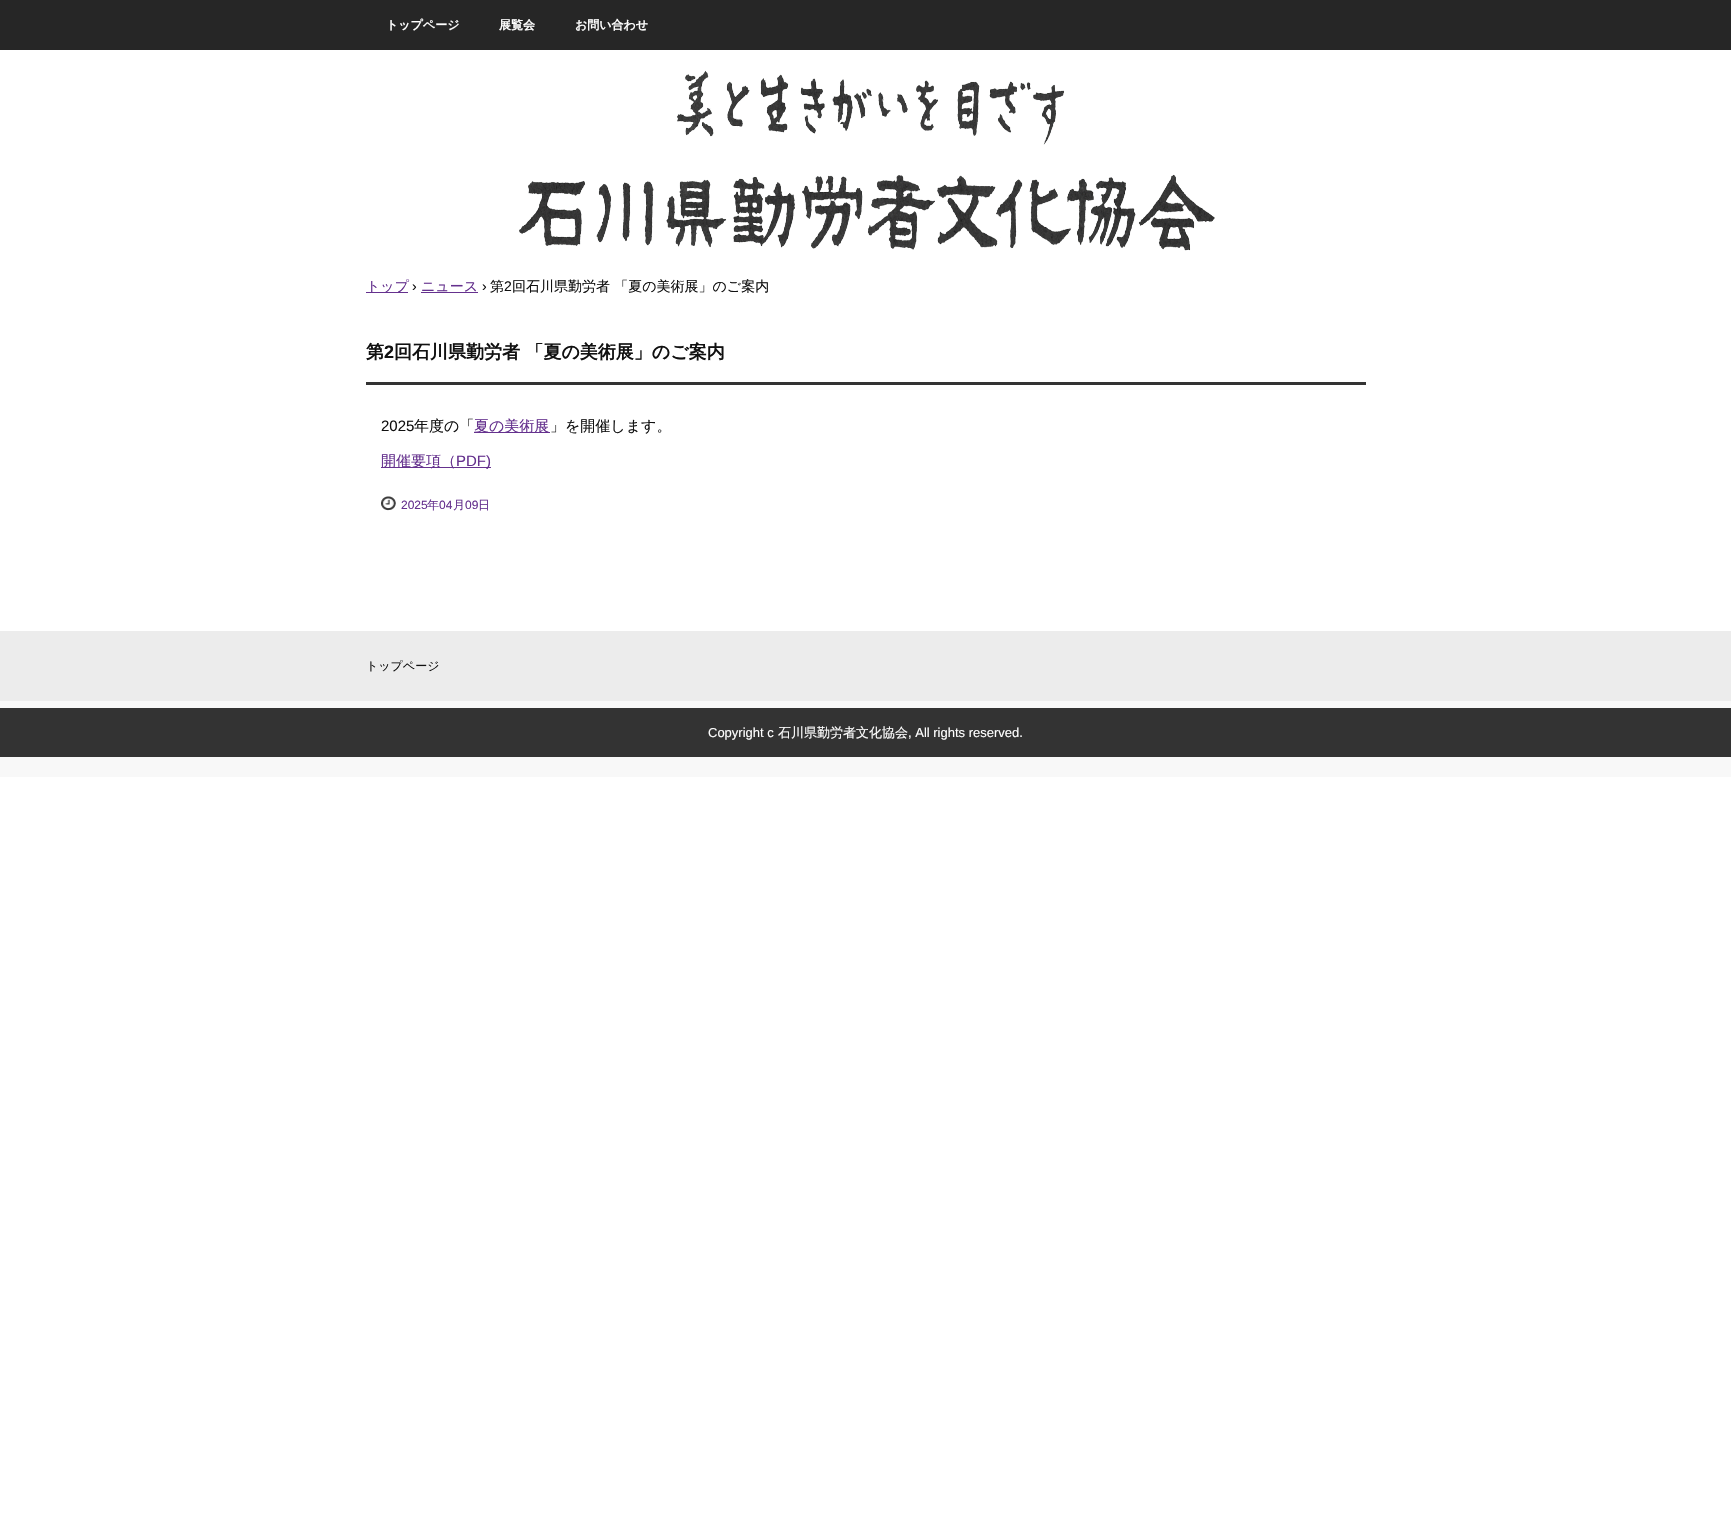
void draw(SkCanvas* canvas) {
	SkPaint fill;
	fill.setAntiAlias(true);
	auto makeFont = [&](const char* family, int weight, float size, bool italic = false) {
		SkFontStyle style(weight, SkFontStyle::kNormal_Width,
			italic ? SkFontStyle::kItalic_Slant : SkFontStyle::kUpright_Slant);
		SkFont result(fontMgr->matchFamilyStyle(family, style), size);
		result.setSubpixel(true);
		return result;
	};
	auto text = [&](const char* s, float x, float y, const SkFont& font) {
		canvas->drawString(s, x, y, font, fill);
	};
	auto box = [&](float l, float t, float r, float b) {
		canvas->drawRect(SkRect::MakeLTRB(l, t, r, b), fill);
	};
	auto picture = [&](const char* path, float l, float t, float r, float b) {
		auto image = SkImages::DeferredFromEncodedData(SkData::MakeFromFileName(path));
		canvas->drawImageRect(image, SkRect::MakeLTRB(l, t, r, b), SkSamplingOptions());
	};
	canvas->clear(0xFFFFFFFF);
	fill.setColor(0xFF262626);
	box(0, 0, 1731, 50);
	picture("image0.png", 519, 70, 1215, 251);
	fill.setColor(0xFF65318E);
	box(366, 292, 408, 293);
	box(421, 292, 478, 293);
	fill.setColor(0xFF333333);
	box(366, 382, 1366, 385);
	fill.setColor(0xFF65318E);
	box(474, 432, 550, 433);
	box(381, 467, 491, 468);
	picture("image1.png", 381, 496, 396, 511);
	fill.setColor(0xFFF8F8F8);
	box(0, 701, 1731, 777);
	fill.setColor(0xFFECECEC);
	box(0, 631, 1731, 701);
	fill.setColor(0xFF333333);
	box(0, 708, 1731, 757);
	auto font1 = makeFont("WenQuanYi Zen Hei", 700, 12);
	fill.setColor(0xFFFFFFFF);
	text("トップページ", 386, 29, font1);
	text("展覧会", 499, 29, font1);
	text("お問い合わせ", 575, 29, font1);
	auto font2 = makeFont("WenQuanYi Zen Hei", 500, 14);
	fill.setColor(0xFF65318E);
	text("トップ", 366, 291, font2);
	auto font3 = makeFont("Liberation Sans", 400, 14);
	fill.setColor(0xFF111111);
	text("›", 412, 291, font3);
	fill.setColor(0xFF65318E);
	text("ニュース", 421, 291, font2);
	fill.setColor(0xFF111111);
	text("›", 482, 291, font3);
	text("第", 490, 291, font2);
	text("2", 504, 291, font3);
	text("回石川県勤労者 「夏の美術展」のご案内", 512, 291, font2);
	auto font4 = makeFont("WenQuanYi Zen Hei", 700, 18);
	text("第", 366, 358, font4);
	auto font5 = makeFont("Liberation Sans", 700, 18);
	text("2", 384, 358, font5);
	text("回石川県勤労者 「夏の美術展」のご案内", 394, 358, font4);
	auto font6 = makeFont("Liberation Sans", 400, 15);
	text("2025", 381, 431, font6);
	auto font7 = makeFont("WenQuanYi Zen Hei", 500, 15);
	text("年度の「", 414, 431, font7);
	fill.setColor(0xFF65318E);
	text("夏の美術展", 474, 431, font7);
	fill.setColor(0xFF111111);
	text("」を開催します。", 550, 431, font7);
	fill.setColor(0xFF65318E);
	text("開催要項（", 381, 466, font7);
	text("PDF)", 456, 466, font6);
	auto font8 = makeFont("Liberation Sans", 400, 12);
	text("2025", 401, 509, font8);
	auto font9 = makeFont("WenQuanYi Zen Hei", 500, 12);
	text("年", 427, 509, font9);
	text("04", 439, 509, font8);
	text("月", 453, 509, font9);
	text("09", 465, 509, font8);
	text("日", 478, 509, font9);
	fill.setColor(0xFF111111);
	text("トップページ", 366, 670, font9);
	auto font10 = makeFont("Liberation Sans", 400, 13);
	fill.setColor(0xFFFFFFFF);
	text("Copyright c", 708, 737, font10);
	auto font11 = makeFont("WenQuanYi Zen Hei", 500, 13);
	text("石川県勤労者文化協会", 778, 737, font11);
	text(", All rights reserved.", 908, 737, font10);
}
